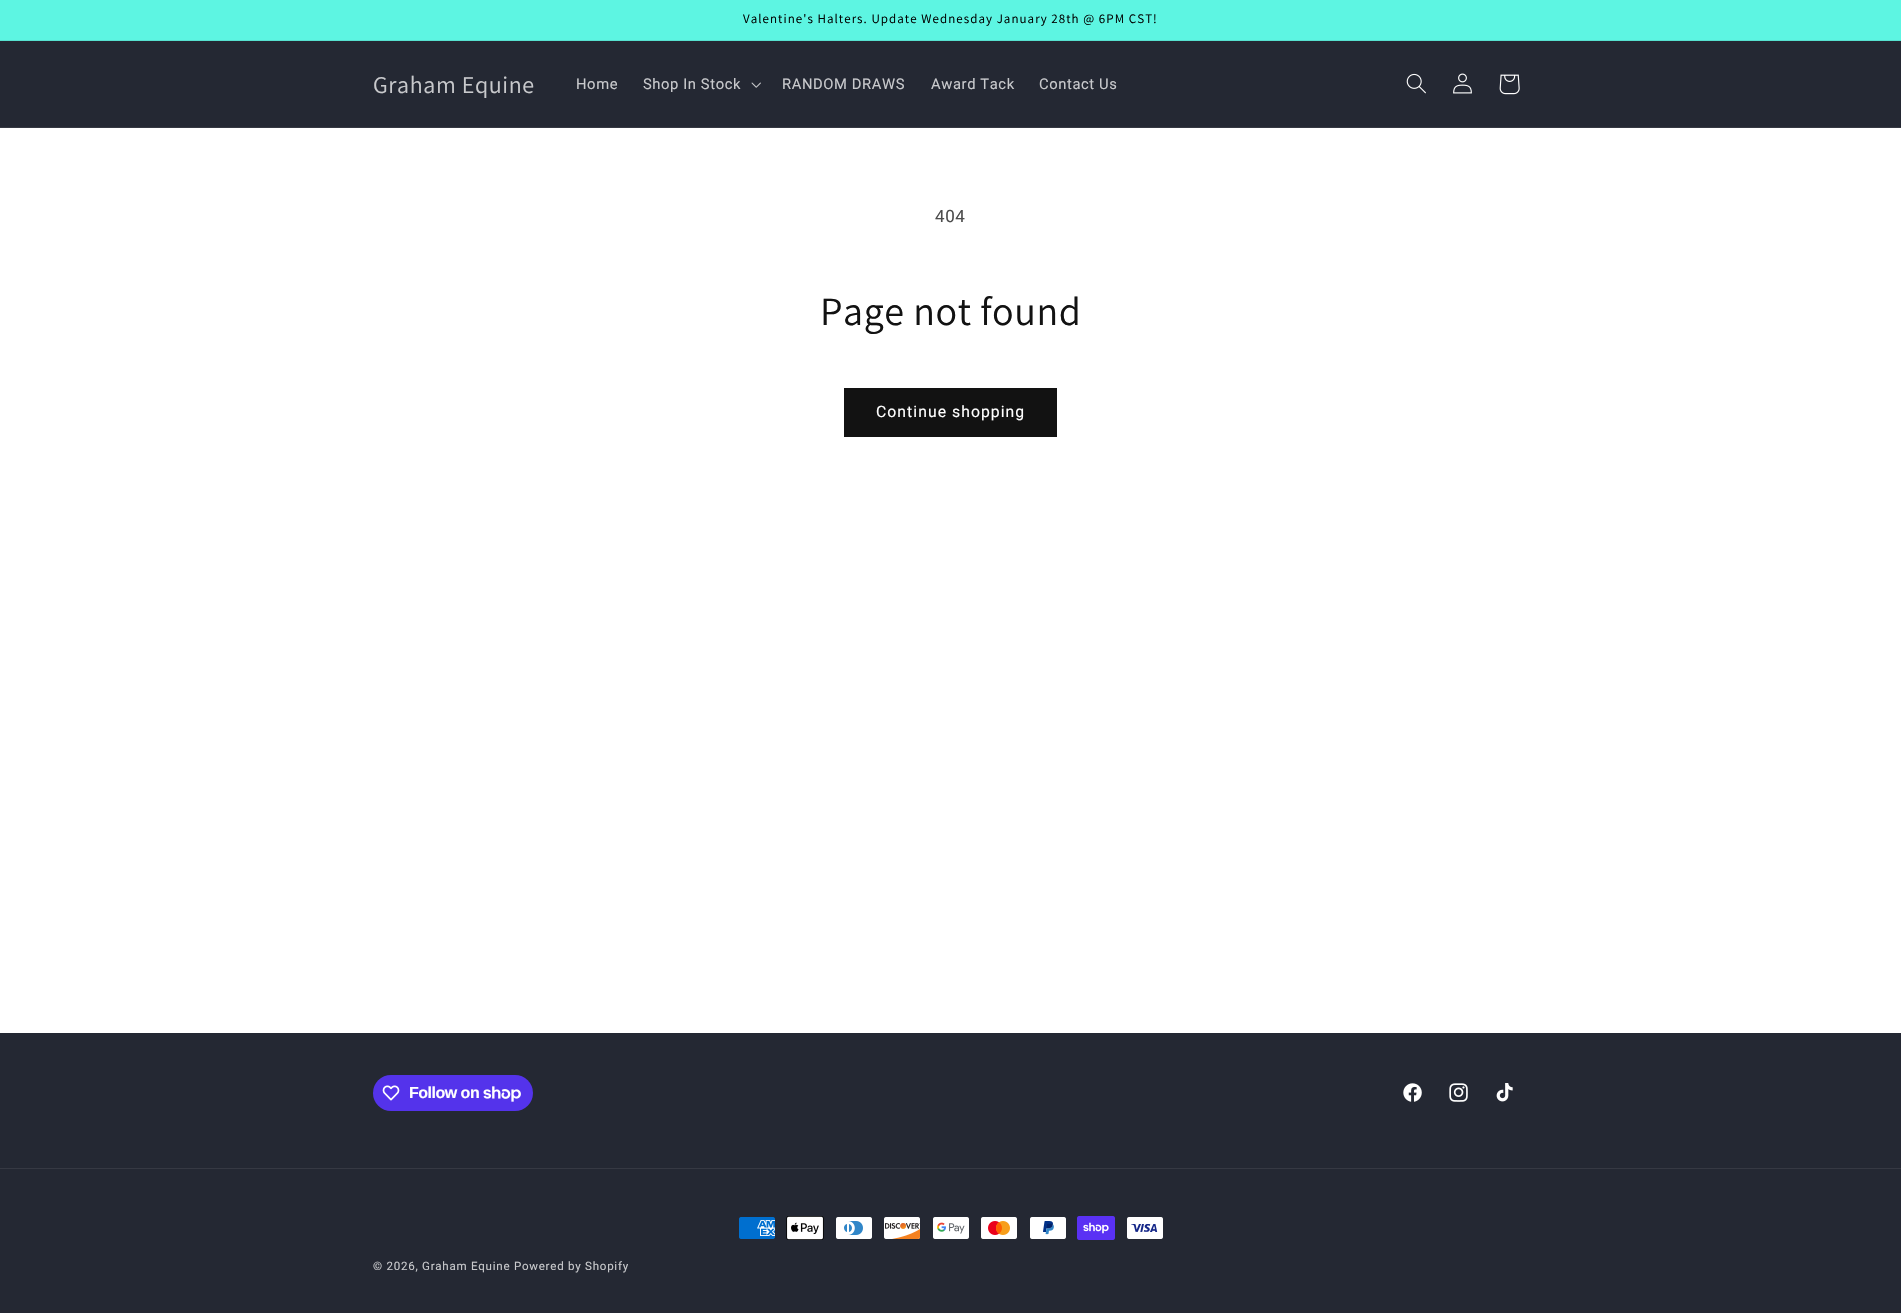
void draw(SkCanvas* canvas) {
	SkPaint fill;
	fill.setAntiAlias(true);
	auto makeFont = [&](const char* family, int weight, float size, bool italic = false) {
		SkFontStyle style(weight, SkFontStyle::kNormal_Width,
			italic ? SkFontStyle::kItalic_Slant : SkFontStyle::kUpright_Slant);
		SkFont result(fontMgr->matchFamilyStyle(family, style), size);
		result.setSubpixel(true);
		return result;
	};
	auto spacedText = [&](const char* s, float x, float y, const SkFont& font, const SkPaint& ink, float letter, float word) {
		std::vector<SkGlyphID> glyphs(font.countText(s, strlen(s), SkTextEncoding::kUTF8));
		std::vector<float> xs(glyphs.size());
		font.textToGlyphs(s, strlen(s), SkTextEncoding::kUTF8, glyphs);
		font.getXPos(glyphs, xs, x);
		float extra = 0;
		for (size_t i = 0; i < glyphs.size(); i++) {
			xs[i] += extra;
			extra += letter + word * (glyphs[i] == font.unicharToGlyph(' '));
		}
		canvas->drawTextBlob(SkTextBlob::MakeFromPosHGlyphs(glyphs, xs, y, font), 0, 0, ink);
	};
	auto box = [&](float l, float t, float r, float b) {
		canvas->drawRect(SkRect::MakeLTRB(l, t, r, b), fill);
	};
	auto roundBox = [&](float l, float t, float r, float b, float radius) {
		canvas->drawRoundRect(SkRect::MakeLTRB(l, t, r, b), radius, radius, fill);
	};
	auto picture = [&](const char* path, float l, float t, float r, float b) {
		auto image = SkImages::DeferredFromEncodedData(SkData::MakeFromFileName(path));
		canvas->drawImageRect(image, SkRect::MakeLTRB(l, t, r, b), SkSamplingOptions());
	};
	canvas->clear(0xFFFFFFFF);
	fill.setColor(0xFF5DF5E2);
	box(0, 0, 1901, 40);
	fill.setColor(0xFF56E1D0);
	box(0, 40, 1901, 41);
	fill.setColor(0xFF242833);
	box(0, 41, 1901, 127);
	fill.setColor(0xFF363943);
	box(0, 127, 1901, 128);
	picture("image0.png", 751, 82, 761, 88);
	picture("image1.png", 1406, 73, 1426, 94);
	picture("image2.png", 1453, 73, 1472, 94);
	picture("image3.png", 1499, 74, 1520, 95);
	fill.setColor(0xFF121212);
	box(844, 388, 1057, 437);
	fill.setColor(0xFF242833);
	box(0, 1033, 1901, 1313);
	fill.setColor(0xFF5433EB);
	roundBox(373, 1075, 533, 1111, 18);
	picture("image4.png", 382, 1085, 400, 1101);
	picture("image5.png", 483, 1086, 521, 1102);
	picture("image6.png", 1403, 1083, 1422, 1102);
	picture("image7.png", 1449, 1083, 1468, 1102);
	picture("image8.png", 1496, 1083, 1513, 1102);
	fill.setColor(0xFF363943);
	box(0, 1168, 1901, 1169);
	picture("image9.png", 739, 1217, 775, 1239);
	picture("image10.png", 786, 1216, 824, 1240);
	picture("image11.png", 836, 1217, 872, 1239);
	picture("image12.png", 884, 1217, 920, 1239);
	picture("image13.png", 933, 1217, 969, 1239);
	picture("image14.png", 981, 1217, 1017, 1239);
	picture("image15.png", 1030, 1217, 1066, 1239);
	picture("image16.png", 1077, 1216, 1115, 1240);
	picture("image17.png", 1127, 1217, 1163, 1239);
	auto font1 = makeFont("Assistant", 400, 13);
	fill.setColor(0xFF000000);
	spacedText("Valentine's Halters. Update Wednesday January 28th @ 6PM CST!", 743, 23, font1, fill, 1.05f, 0);
	auto font2 = makeFont("Assistant", 400, 24);
	fill.setColor(0xFFC8C9CC);
	spacedText("Graham Equine", 373, 93, font2, fill, 0.6f, 0);
	auto font3 = makeFont("Roboto", 400, 14.75f);
	spacedText("Home", 576, 89, font3, fill, 0.6f, 0);
	spacedText("Shop In Stock", 643, 89, font3, fill, 0.6f, 0);
	spacedText("RANDOM DRAWS", 782, 89, font3, fill, 0.6f, 0);
	spacedText("Award Tack", 931, 89, font3, fill, 0.6f, 0);
	spacedText("Contact Us", 1039, 89, font3, fill, 0.6f, 0);
	auto font4 = makeFont("Roboto", 400, 17);
	fill.setColor(0xFF4D4D4D);
	spacedText("404", 935, 222, font4, fill, 0.6f, 0);
	auto font5 = makeFont("Assistant", 400, 40);
	fill.setColor(0xFF121212);
	spacedText("Page not found", 820, 325, font5, fill, 0.6f, 0);
	auto font6 = makeFont("Roboto", 400, 15.75f);
	fill.setColor(0xFFFFFFFF);
	spacedText("Continue shopping", 876, 417, font6, fill, 1.05f, 0);
	auto font7 = makeFont("Liberation Sans", 700, 16);
	spacedText("Follow on", 409, 1098, font7, fill, -0.5f, 0);
	auto font8 = makeFont("Roboto", 400, 11.55f);
	fill.setColor(0xFFC8C9CC);
	spacedText("© 2026, Graham Equine Powered by Shopify", 373, 1270, font8, fill, 0.75f, 0);
}
